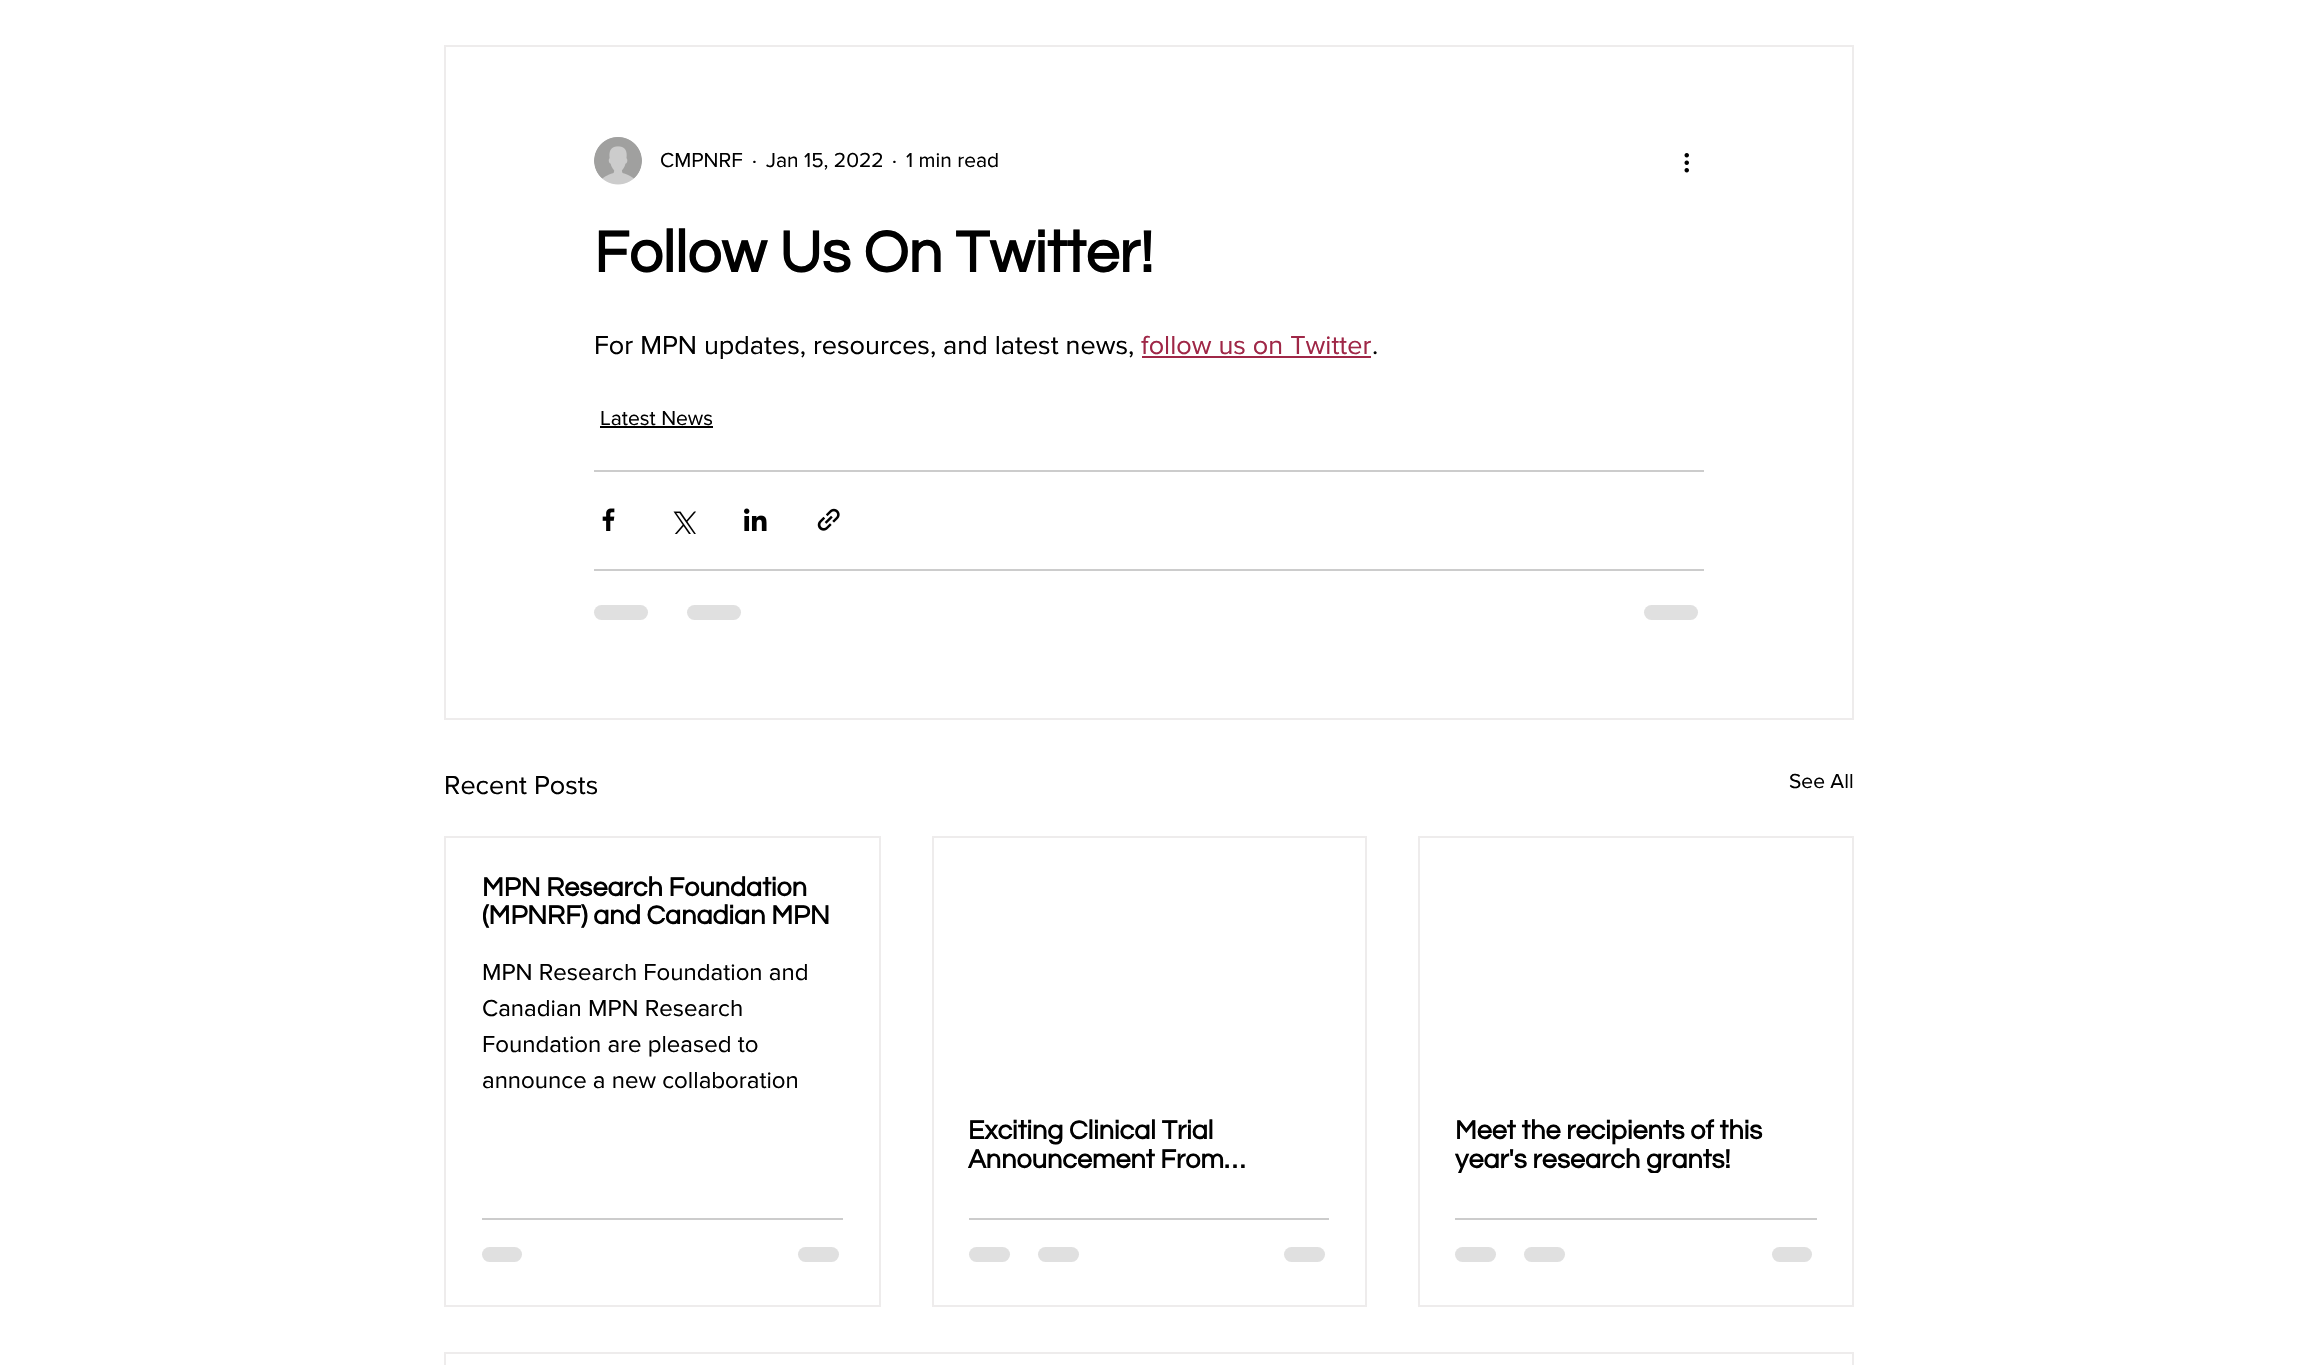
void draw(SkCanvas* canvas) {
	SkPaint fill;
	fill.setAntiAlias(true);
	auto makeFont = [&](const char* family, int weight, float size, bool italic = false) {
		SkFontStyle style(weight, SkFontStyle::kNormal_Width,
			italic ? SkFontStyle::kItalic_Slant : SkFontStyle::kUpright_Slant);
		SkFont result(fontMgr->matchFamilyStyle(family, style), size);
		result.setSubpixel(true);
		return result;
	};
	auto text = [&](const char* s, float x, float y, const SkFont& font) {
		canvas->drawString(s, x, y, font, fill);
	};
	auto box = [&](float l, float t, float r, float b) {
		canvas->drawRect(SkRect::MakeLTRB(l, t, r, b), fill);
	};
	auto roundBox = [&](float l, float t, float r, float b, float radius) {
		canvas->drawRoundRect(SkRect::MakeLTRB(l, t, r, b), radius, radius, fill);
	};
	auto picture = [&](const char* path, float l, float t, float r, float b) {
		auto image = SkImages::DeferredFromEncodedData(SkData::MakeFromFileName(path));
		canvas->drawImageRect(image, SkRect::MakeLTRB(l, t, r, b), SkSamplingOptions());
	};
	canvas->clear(0xFFFFFFFF);
	fill.setStyle(SkPaint::kStroke_Style);
	fill.setStrokeWidth(2);
	fill.setColor(0xFFEEECEC);
	canvas->drawRect(SkRect::MakeLTRB(445, 46, 1853, 719), fill);
	picture("image0.png", 594, 137, 642, 185);
	picture("image1.png", 1684, 153, 1689, 173);
	fill.setStyle(SkPaint::kFill_Style);
	fill.setColor(0xFF9F2747);
	box(1142, 356, 1371, 358);
	fill.setColor(0xFF000000);
	box(600, 426, 713, 428);
	fill.setColor(0xFFCCCCCC);
	box(594, 470, 1704, 472);
	picture("image2.png", 602, 508, 615, 531);
	picture("image3.png", 673, 511, 696, 534);
	picture("image4.png", 744, 508, 767, 531);
	picture("image5.png", 817, 508, 840, 531);
	box(594, 569, 1704, 571);
	fill.setColor(0xFFE0E0E0);
	roundBox(594, 605, 648, 620, 7.5f);
	roundBox(687, 605, 741, 620, 7.5f);
	roundBox(1644, 605, 1698, 620, 7.5f);
	fill.setStyle(SkPaint::kStroke_Style);
	fill.setColor(0xFFEEECEC);
	canvas->drawRect(SkRect::MakeLTRB(445, 837, 880, 1306), fill);
	fill.setStyle(SkPaint::kFill_Style);
	fill.setColor(0xFFCCCCCC);
	box(482, 1218, 843, 1220);
	fill.setColor(0xFFE0E0E0);
	roundBox(482, 1247, 522, 1262, 7.5f);
	roundBox(798, 1247, 839, 1262, 7.5f);
	fill.setStyle(SkPaint::kStroke_Style);
	fill.setColor(0xFFEEECEC);
	canvas->drawRect(SkRect::MakeLTRB(933, 837, 1366, 1306), fill);
	fill.setStyle(SkPaint::kFill_Style);
	fill.setColor(0xFFCCCCCC);
	box(969, 1218, 1329, 1220);
	fill.setColor(0xFFE0E0E0);
	roundBox(969, 1247, 1010, 1262, 7.5f);
	roundBox(1038, 1247, 1079, 1262, 7.5f);
	roundBox(1284, 1247, 1325, 1262, 7.5f);
	fill.setStyle(SkPaint::kStroke_Style);
	fill.setColor(0xFFEEECEC);
	canvas->drawRect(SkRect::MakeLTRB(1419, 837, 1853, 1306), fill);
	fill.setStyle(SkPaint::kFill_Style);
	fill.setColor(0xFFCCCCCC);
	box(1455, 1218, 1817, 1220);
	fill.setColor(0xFFE0E0E0);
	roundBox(1455, 1247, 1496, 1262, 7.5f);
	roundBox(1524, 1247, 1565, 1262, 7.5f);
	roundBox(1772, 1247, 1812, 1262, 7.5f);
	fill.setStyle(SkPaint::kStroke_Style);
	fill.setColor(0xFFEEECEC);
	canvas->drawRect(SkRect::MakeLTRB(445, 1353, 1853, 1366), fill);
	auto font1 = makeFont("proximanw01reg", 400, 21);
	fill.setStyle(SkPaint::kFill_Style);
	fill.setColor(0xFF000000);
	text("CMPNRF", 660, 167, font1);
	text("·", 752, 167, font1);
	text("Jan 15, 2022", 766, 167, font1);
	text("·", 892, 167, font1);
	text("1 min read", 906, 167, font1);
	auto font2 = makeFont("Questrial", 700, 60);
	text("Follow Us On Twitter!", 594, 272, font2);
	auto font3 = makeFont("proximanw01reg", 400, 27);
	text("For MPN updates, resources, and latest news,", 594, 354, font3);
	fill.setColor(0xFF9F2747);
	text("follow us on Twitter", 1141, 354, font3);
	fill.setColor(0xFF000000);
	text(".", 1372, 354, font3);
	text("Latest News", 600, 425, font1);
	text("Recent Posts", 444, 794, font3);
	text("See All", 1789, 788, font1);
	auto font4 = makeFont("Questrial", 700, 27);
	text("MPN Research Foundation", 482, 896, font4);
	text("(MPNRF) and Canadian MPN", 482, 924, font4);
	auto font5 = makeFont("proximanw01reg", 400, 24);
	text("MPN Research Foundation and", 482, 980, font5);
	text("Canadian MPN Research", 482, 1016, font5);
	text("Foundation are pleased to", 482, 1052, font5);
	text("announce a new collaboration", 482, 1088, font5);
	text("Exciting Clinical Trial", 968, 1139, font4);
	text("Announcement From…", 968, 1168, font4);
	text("Meet the recipients of this", 1455, 1139, font4);
	canvas->save();
	canvas->clipRect(SkRect::MakeLTRB(1455, 1116, 1817, 1173));
	text("year's research grants!", 1455, 1168, font4);
	canvas->restore();
}
